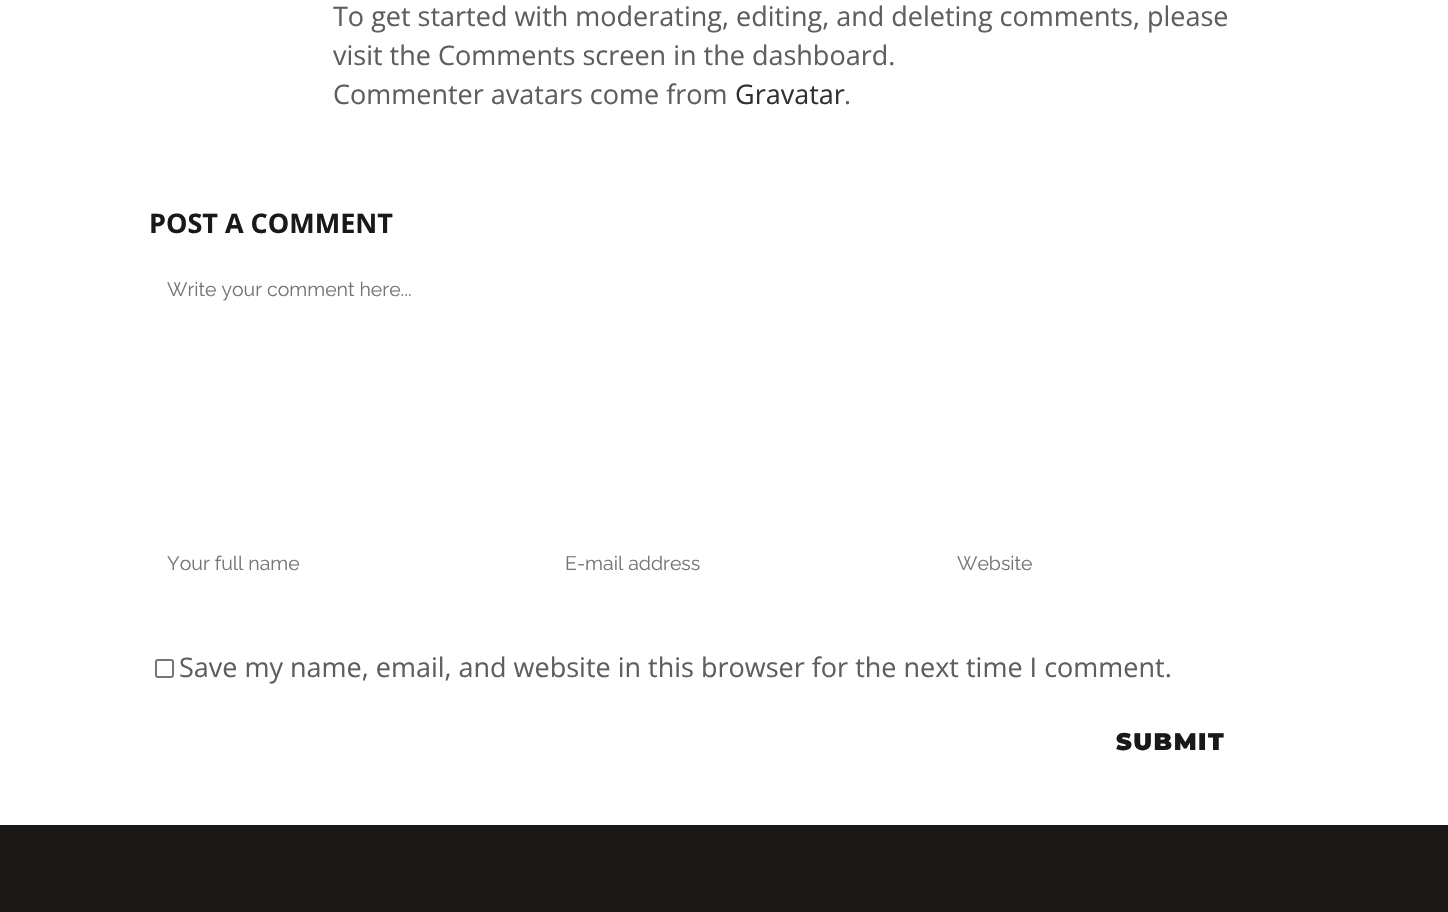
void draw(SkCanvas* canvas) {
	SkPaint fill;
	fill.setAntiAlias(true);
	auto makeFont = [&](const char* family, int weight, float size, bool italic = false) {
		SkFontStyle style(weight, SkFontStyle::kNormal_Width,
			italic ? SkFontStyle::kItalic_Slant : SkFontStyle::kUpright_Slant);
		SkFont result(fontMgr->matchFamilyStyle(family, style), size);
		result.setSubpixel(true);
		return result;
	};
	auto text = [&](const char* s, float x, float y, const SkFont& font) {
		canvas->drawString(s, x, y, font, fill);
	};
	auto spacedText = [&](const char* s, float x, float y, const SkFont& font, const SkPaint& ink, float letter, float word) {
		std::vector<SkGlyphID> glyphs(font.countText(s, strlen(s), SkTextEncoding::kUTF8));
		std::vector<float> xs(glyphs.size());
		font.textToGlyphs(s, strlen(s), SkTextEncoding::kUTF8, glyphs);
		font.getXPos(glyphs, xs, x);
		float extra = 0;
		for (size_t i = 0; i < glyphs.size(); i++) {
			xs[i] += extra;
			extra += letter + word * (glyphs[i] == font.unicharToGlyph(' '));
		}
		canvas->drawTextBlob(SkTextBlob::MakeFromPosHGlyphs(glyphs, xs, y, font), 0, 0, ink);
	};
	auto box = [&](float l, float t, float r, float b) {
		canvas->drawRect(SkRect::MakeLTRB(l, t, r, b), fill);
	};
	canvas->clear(0xFFFFFFFF);
	fill.setStyle(SkPaint::kStroke_Style);
	fill.setStrokeWidth(2);
	fill.setColor(0xFF767676);
	canvas->drawRoundRect(SkRect::MakeLTRB(156, 660, 173, 677), 2, 2, fill);
	fill.setStyle(SkPaint::kFill_Style);
	fill.setColor(0xFF1A1917);
	box(0, 825, 1448, 912);
	auto font1 = makeFont("Open Sans", 400, 27);
	fill.setColor(0xFF5E5E5E);
	text("To get started with moderating, editing, and deleting comments, please", 333, 26, font1);
	text("visit the Comments screen in the dashboard.", 333, 65, font1);
	text("Commenter avatars come from", 333, 104, font1);
	fill.setColor(0xFF303030);
	text("Gravatar", 735, 104, font1);
	fill.setColor(0xFF5E5E5E);
	text(".", 844, 104, font1);
	auto font2 = makeFont("Open Sans", 700, 27);
	fill.setColor(0xFF1A1917);
	text("POST A COMMENT", 149, 233, font2);
	auto font3 = makeFont("Raleway", 400, 19.5f);
	fill.setColor(0xFF757575);
	text("Write your comment here...", 167, 296, font3);
	text("Your full name", 167, 570, font3);
	text("E-mail address", 565, 570, font3);
	text("Website", 957, 570, font3);
	fill.setColor(0xFF5E5E5E);
	text("Save my name, email, and website in this browser for the next time I comment.", 179, 677, font1);
	auto font4 = makeFont("Montserrat", 900, 24);
	fill.setColor(0xFF1A1917);
	spacedText("SUBMIT", 1116, 750, font4, fill, 1.5f, 0);
}
